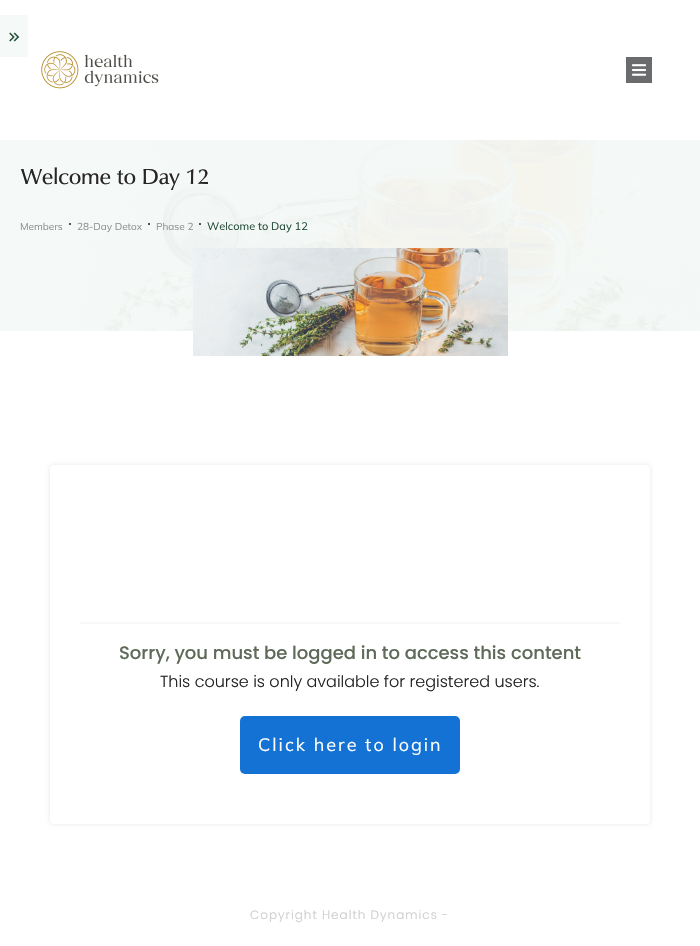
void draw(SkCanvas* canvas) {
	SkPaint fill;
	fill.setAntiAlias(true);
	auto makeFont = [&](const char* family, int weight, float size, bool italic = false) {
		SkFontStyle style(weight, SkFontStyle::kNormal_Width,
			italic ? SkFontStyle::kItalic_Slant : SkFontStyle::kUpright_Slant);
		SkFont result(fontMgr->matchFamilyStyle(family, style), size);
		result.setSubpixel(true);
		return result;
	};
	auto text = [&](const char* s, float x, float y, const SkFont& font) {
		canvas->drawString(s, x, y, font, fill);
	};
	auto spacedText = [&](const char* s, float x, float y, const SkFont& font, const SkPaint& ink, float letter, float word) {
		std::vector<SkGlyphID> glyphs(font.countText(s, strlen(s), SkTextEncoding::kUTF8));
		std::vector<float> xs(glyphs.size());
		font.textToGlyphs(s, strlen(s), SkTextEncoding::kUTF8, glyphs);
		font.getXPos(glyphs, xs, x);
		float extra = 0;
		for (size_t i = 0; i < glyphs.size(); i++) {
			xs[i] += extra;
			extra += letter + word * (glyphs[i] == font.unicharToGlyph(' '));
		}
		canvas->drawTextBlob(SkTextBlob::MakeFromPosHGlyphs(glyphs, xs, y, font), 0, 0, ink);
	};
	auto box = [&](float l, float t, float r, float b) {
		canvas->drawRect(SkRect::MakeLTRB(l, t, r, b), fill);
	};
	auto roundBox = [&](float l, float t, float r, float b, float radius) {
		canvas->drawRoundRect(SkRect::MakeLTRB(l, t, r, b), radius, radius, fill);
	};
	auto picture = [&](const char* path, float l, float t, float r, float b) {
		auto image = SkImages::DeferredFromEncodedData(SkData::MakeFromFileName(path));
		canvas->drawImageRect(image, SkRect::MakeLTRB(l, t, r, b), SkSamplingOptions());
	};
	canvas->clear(0xFFFFFFFF);
	fill.setColor(0xFFF5F9F7);
	box(0, 15, 28, 57);
	picture("image0.png", 9, 32, 20, 42);
	picture("image1.png", 41, 51, 159, 89);
	picture("image2.png", 626, 57, 652, 83);
	picture("image3.png", 0, 140, 700, 331);
	fill.setColor(0xFF525353);
	box(69, 223, 71, 225);
	box(148, 223, 150, 225);
	box(199, 223, 201, 225);
	picture("image4.png", 193, 248, 508, 356);
	fill.setColor(0x1A000000);
	fill.setMaskFilter(SkMaskFilter::MakeBlur(kNormal_SkBlurStyle, 2));
	canvas->drawRoundRect(SkRect::MakeLTRB(50, 465, 650, 824), 4, 4, fill);
	fill.setMaskFilter(nullptr);
	fill.setColor(0xFFFFFFFF);
	roundBox(50, 465, 650, 824, 4);
	fill.setColor(0xFFF7F7F7);
	box(80, 622, 620, 624);
	fill.setColor(0xFF1372D3);
	roundBox(240, 716, 460, 774, 5);
	auto font1 = makeFont("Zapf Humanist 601", 700, 22);
	fill.setColor(0xFF282525);
	text("Welcome to Day 12", 21, 184, font1);
	auto font2 = makeFont("Mulish", 400, 10);
	fill.setColor(0xFF939292);
	text("Members", 20, 230, font2);
	text("28-Day Detox", 77, 230, font2);
	text("Phase 2", 156, 230, font2);
	auto font3 = makeFont("Mulish", 400, 11);
	fill.setColor(0xFF244C39);
	text("Welcome to Day 12", 207, 230, font3);
	auto font4 = makeFont("Poppins", 500, 18);
	fill.setColor(0xFF5F6A59);
	text("Sorry, you must be logged in to access this content", 119, 659, font4);
	auto font5 = makeFont("Poppins", 300, 16);
	fill.setColor(0xFF222222);
	text("This course is only available for registered users.", 160, 687, font5);
	auto font6 = makeFont("Mulish", 400, 18);
	fill.setColor(0xFFFFFFFF);
	spacedText("Click here to login", 258, 751, font6, fill, 2, 0);
	auto font7 = makeFont("Poppins", 300, 12);
	fill.setColor(0xFFCCCCCC);
	spacedText("Copyright Health Dynamics -", 250, 919, font7, fill, 1, 0);
}
